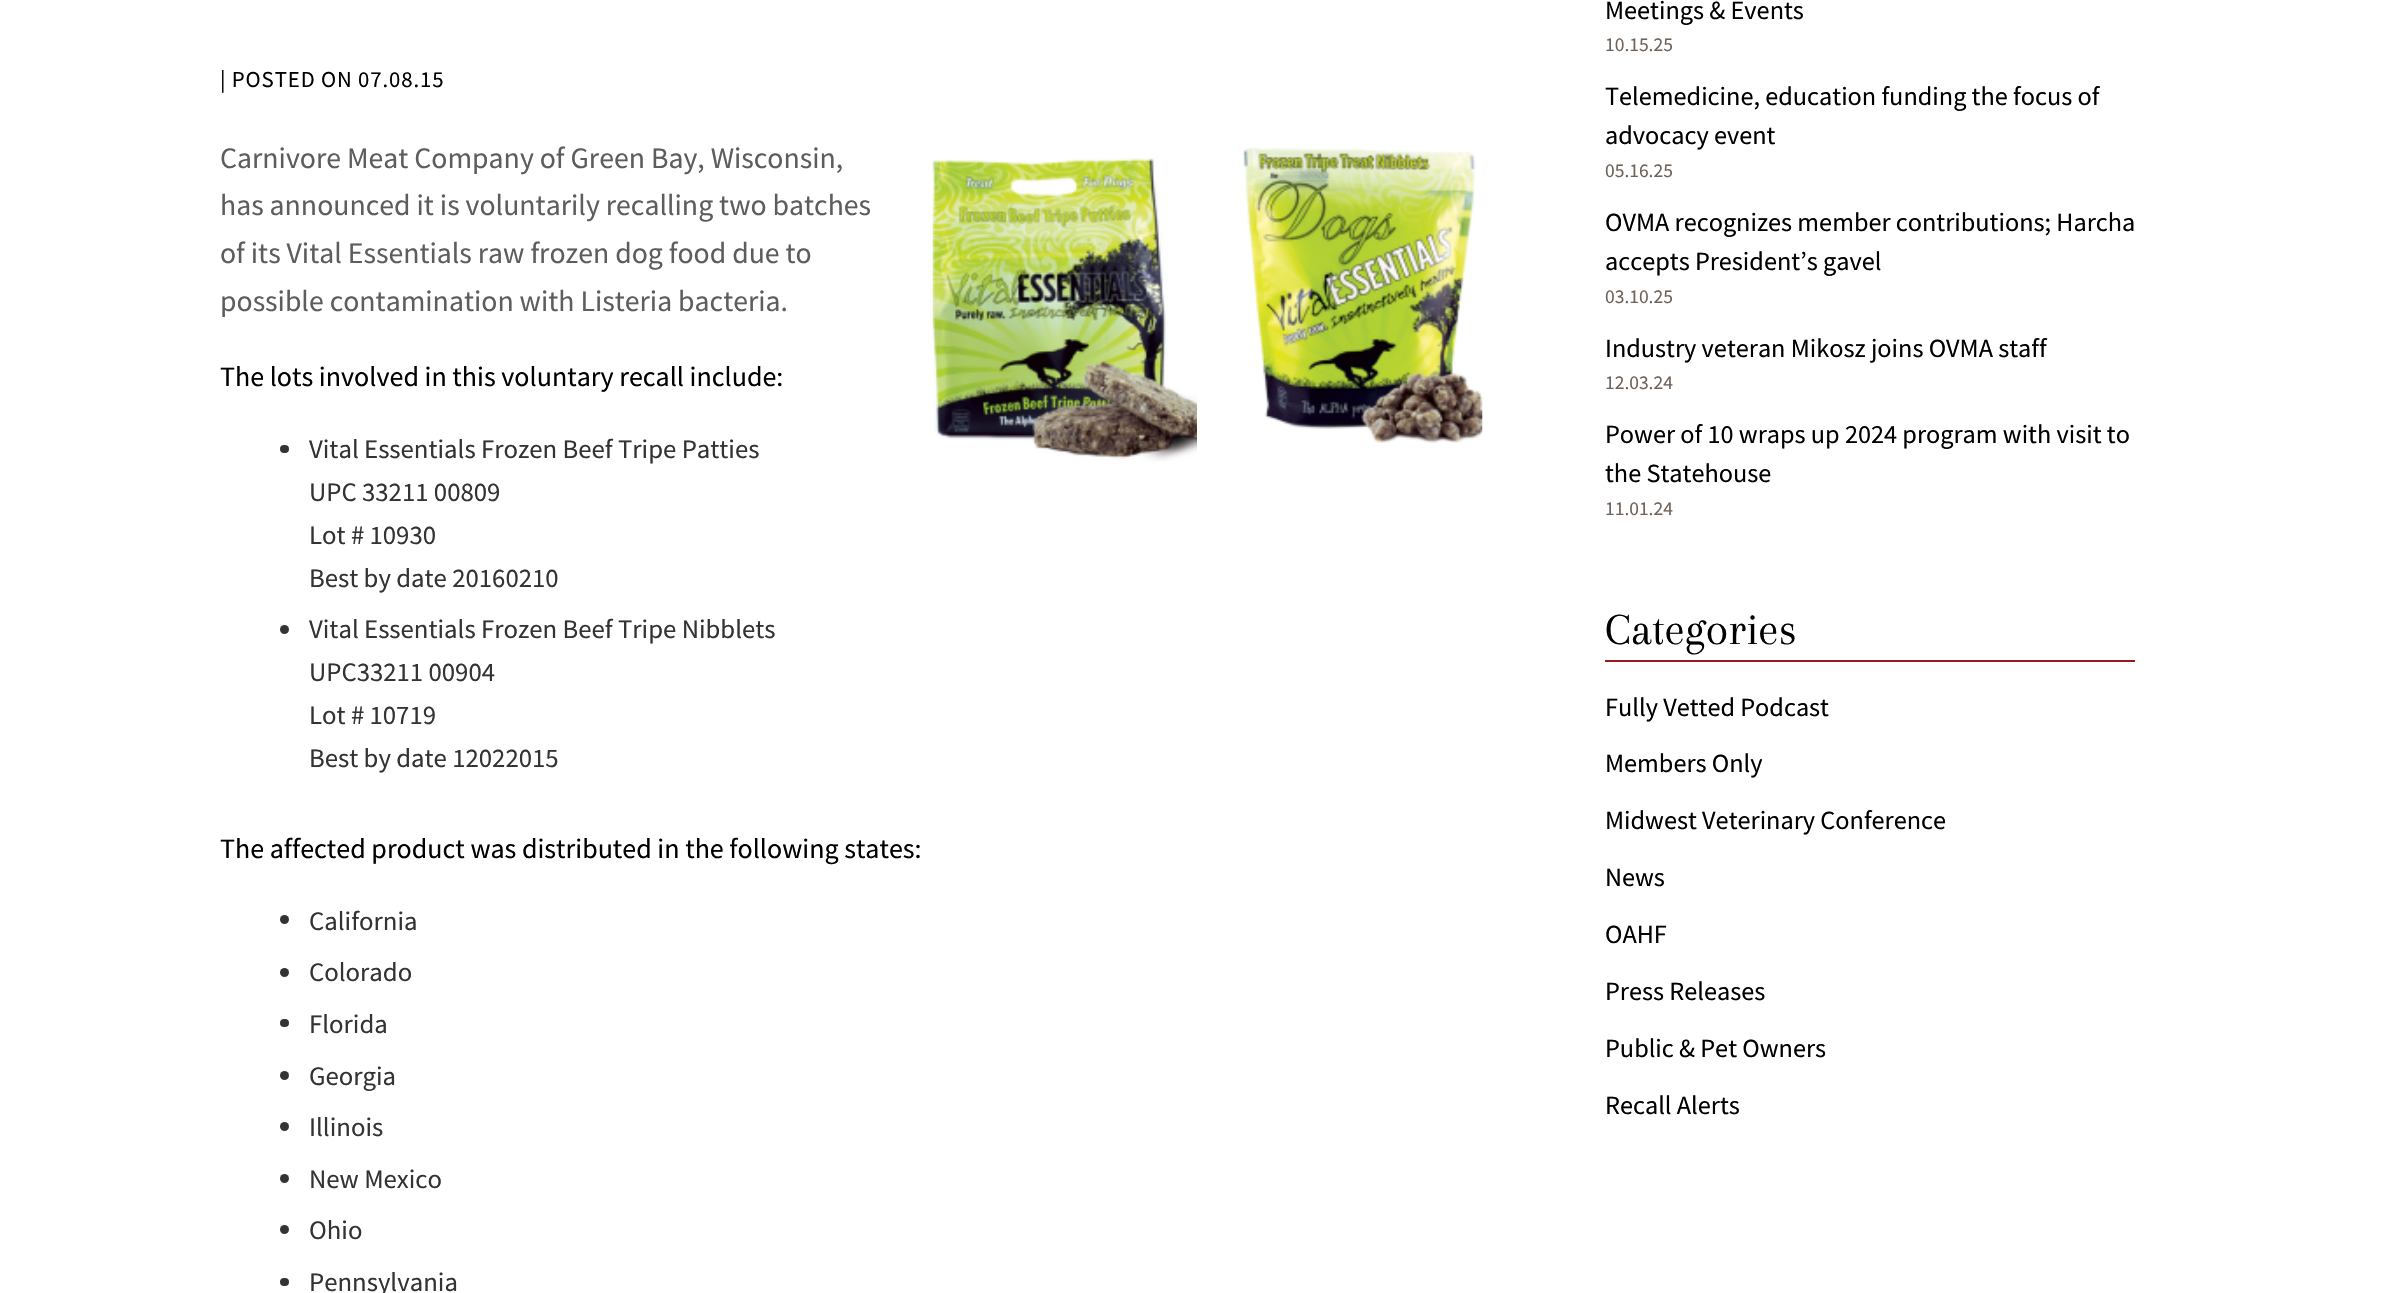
void draw(SkCanvas* canvas) {
	SkPaint fill;
	fill.setAntiAlias(true);
	auto makeFont = [&](const char* family, int weight, float size, bool italic = false) {
		SkFontStyle style(weight, SkFontStyle::kNormal_Width,
			italic ? SkFontStyle::kItalic_Slant : SkFontStyle::kUpright_Slant);
		SkFont result(fontMgr->matchFamilyStyle(family, style), size);
		result.setSubpixel(true);
		return result;
	};
	auto text = [&](const char* s, float x, float y, const SkFont& font) {
		canvas->drawString(s, x, y, font, fill);
	};
	auto spacedText = [&](const char* s, float x, float y, const SkFont& font, const SkPaint& ink, float letter, float word) {
		std::vector<SkGlyphID> glyphs(font.countText(s, strlen(s), SkTextEncoding::kUTF8));
		std::vector<float> xs(glyphs.size());
		font.textToGlyphs(s, strlen(s), SkTextEncoding::kUTF8, glyphs);
		font.getXPos(glyphs, xs, x);
		float extra = 0;
		for (size_t i = 0; i < glyphs.size(); i++) {
			xs[i] += extra;
			extra += letter + word * (glyphs[i] == font.unicharToGlyph(' '));
		}
		canvas->drawTextBlob(SkTextBlob::MakeFromPosHGlyphs(glyphs, xs, y, font), 0, 0, ink);
	};
	auto box = [&](float l, float t, float r, float b) {
		canvas->drawRect(SkRect::MakeLTRB(l, t, r, b), fill);
	};
	auto roundBox = [&](float l, float t, float r, float b, float radius) {
		canvas->drawRoundRect(SkRect::MakeLTRB(l, t, r, b), radius, radius, fill);
	};
	auto picture = [&](const char* path, float l, float t, float r, float b) {
		auto image = SkImages::DeferredFromEncodedData(SkData::MakeFromFileName(path));
		canvas->drawImageRect(image, SkRect::MakeLTRB(l, t, r, b), SkSamplingOptions());
	};
	canvas->clear(0xFFFFFFFF);
	picture("image0.png", 932, 158, 1197, 462);
	picture("image1.png", 1242, 147, 1483, 443);
	fill.setColor(0xFF333333);
	roundBox(280, 445, 289, 453, 4);
	canvas->drawCircle(284.5f, 629.5f, 4.5f, fill);
	canvas->drawCircle(284.5f, 919.5f, 4.5f, fill);
	canvas->drawCircle(284.5f, 972.5f, 4.5f, fill);
	roundBox(280, 1019, 289, 1027, 4);
	canvas->drawCircle(284.5f, 1075.5f, 4.5f, fill);
	canvas->drawCircle(284.5f, 1126.5f, 4.5f, fill);
	canvas->drawCircle(284.5f, 1178.5f, 4.5f, fill);
	canvas->drawCircle(284.5f, 1229.5f, 4.5f, fill);
	roundBox(280, 1278, 289, 1286, 4);
	fill.setColor(0xFF941C1F);
	box(1605, 660, 2135, 662);
	auto font1 = makeFont("Source Sans Pro", 400, 22.75f);
	fill.setColor(0xFF000000);
	spacedText("| POSTED ON 07.08.15", 220, 87, font1, fill, 0.9f, 0);
	auto font2 = makeFont("Source Sans Pro", 400, 29.75f);
	fill.setColor(0xFF5D5D5D);
	text("Carnivore Meat Company of Green Bay, Wisconsin,", 220, 168, font2);
	text("has announced it is voluntarily recalling two batches", 220, 215, font2);
	text("of its Vital Essentials raw frozen dog food due to", 220, 263, font2);
	text("possible contamination with Listeria bacteria.", 220, 311, font2);
	auto font3 = makeFont("Source Sans Pro", 400, 28);
	fill.setColor(0xFF000000);
	text("The lots involved in this voluntary recall include:", 220, 386, font3);
	auto font4 = makeFont("Source Sans Pro", 400, 26.75f);
	fill.setColor(0xFF333333);
	text("Vital Essentials Frozen Beef Tripe Patties", 309, 458, font4);
	text("UPC 33211 00809", 309, 501, font4);
	text("Lot # 10930", 309, 544, font4);
	text("Best by date 20160210", 309, 587, font4);
	text("Vital Essentials Frozen Beef Tripe Nibblets", 309, 638, font4);
	text("UPC33211 00904", 309, 681, font4);
	text("Lot # 10719", 309, 724, font4);
	text("Best by date 12022015", 309, 767, font4);
	fill.setColor(0xFF000000);
	text("The affected product was distributed in the following states:", 220, 858, font3);
	fill.setColor(0xFF333333);
	text("California", 309, 930, font4);
	text("Colorado", 309, 981, font4);
	text("Florida", 309, 1033, font4);
	text("Georgia", 309, 1085, font4);
	text("Illinois", 309, 1136, font4);
	text("New Mexico", 309, 1188, font4);
	text("Ohio", 309, 1239, font4);
	text("Pennsylvania", 309, 1291, font4);
	auto font5 = makeFont("Source Sans Pro", 400, 26.25f);
	fill.setColor(0xFF000000);
	text("Meetings & Events", 1605, 19, font5);
	auto font6 = makeFont("Source Sans Pro", 400, 19.5f);
	fill.setColor(0xFF6E6259);
	text("10.15.25", 1605, 51, font6);
	fill.setColor(0xFF000000);
	text("Telemedicine, education funding the focus of", 1605, 105, font5);
	text("advocacy event", 1605, 144, font5);
	fill.setColor(0xFF6E6259);
	text("05.16.25", 1605, 177, font6);
	fill.setColor(0xFF000000);
	text("OVMA recognizes member contributions; Harcha", 1605, 231, font5);
	text("accepts President’s gavel", 1605, 270, font5);
	fill.setColor(0xFF6E6259);
	text("03.10.25", 1605, 303, font6);
	fill.setColor(0xFF000000);
	text("Industry veteran Mikosz joins OVMA staff", 1605, 357, font5);
	fill.setColor(0xFF6E6259);
	text("12.03.24", 1605, 389, font6);
	fill.setColor(0xFF000000);
	text("Power of 10 wraps up 2024 program with visit to", 1605, 443, font5);
	text("the Statehouse", 1605, 482, font5);
	fill.setColor(0xFF6E6259);
	text("11.01.24", 1605, 515, font6);
	auto font7 = makeFont("Arapey", 400, 46);
	fill.setColor(0xFF000000);
	text("Categories", 1605, 644, font7);
	text("Fully Vetted Podcast", 1605, 716, font5);
	text("Members Only", 1605, 772, font5);
	text("Midwest Veterinary Conference", 1605, 829, font5);
	text("News", 1605, 886, font5);
	text("OAHF", 1605, 943, font5);
	text("Press Releases", 1605, 1000, font5);
	text("Public & Pet Owners", 1605, 1057, font5);
	text("Recall Alerts", 1605, 1114, font5);
}
